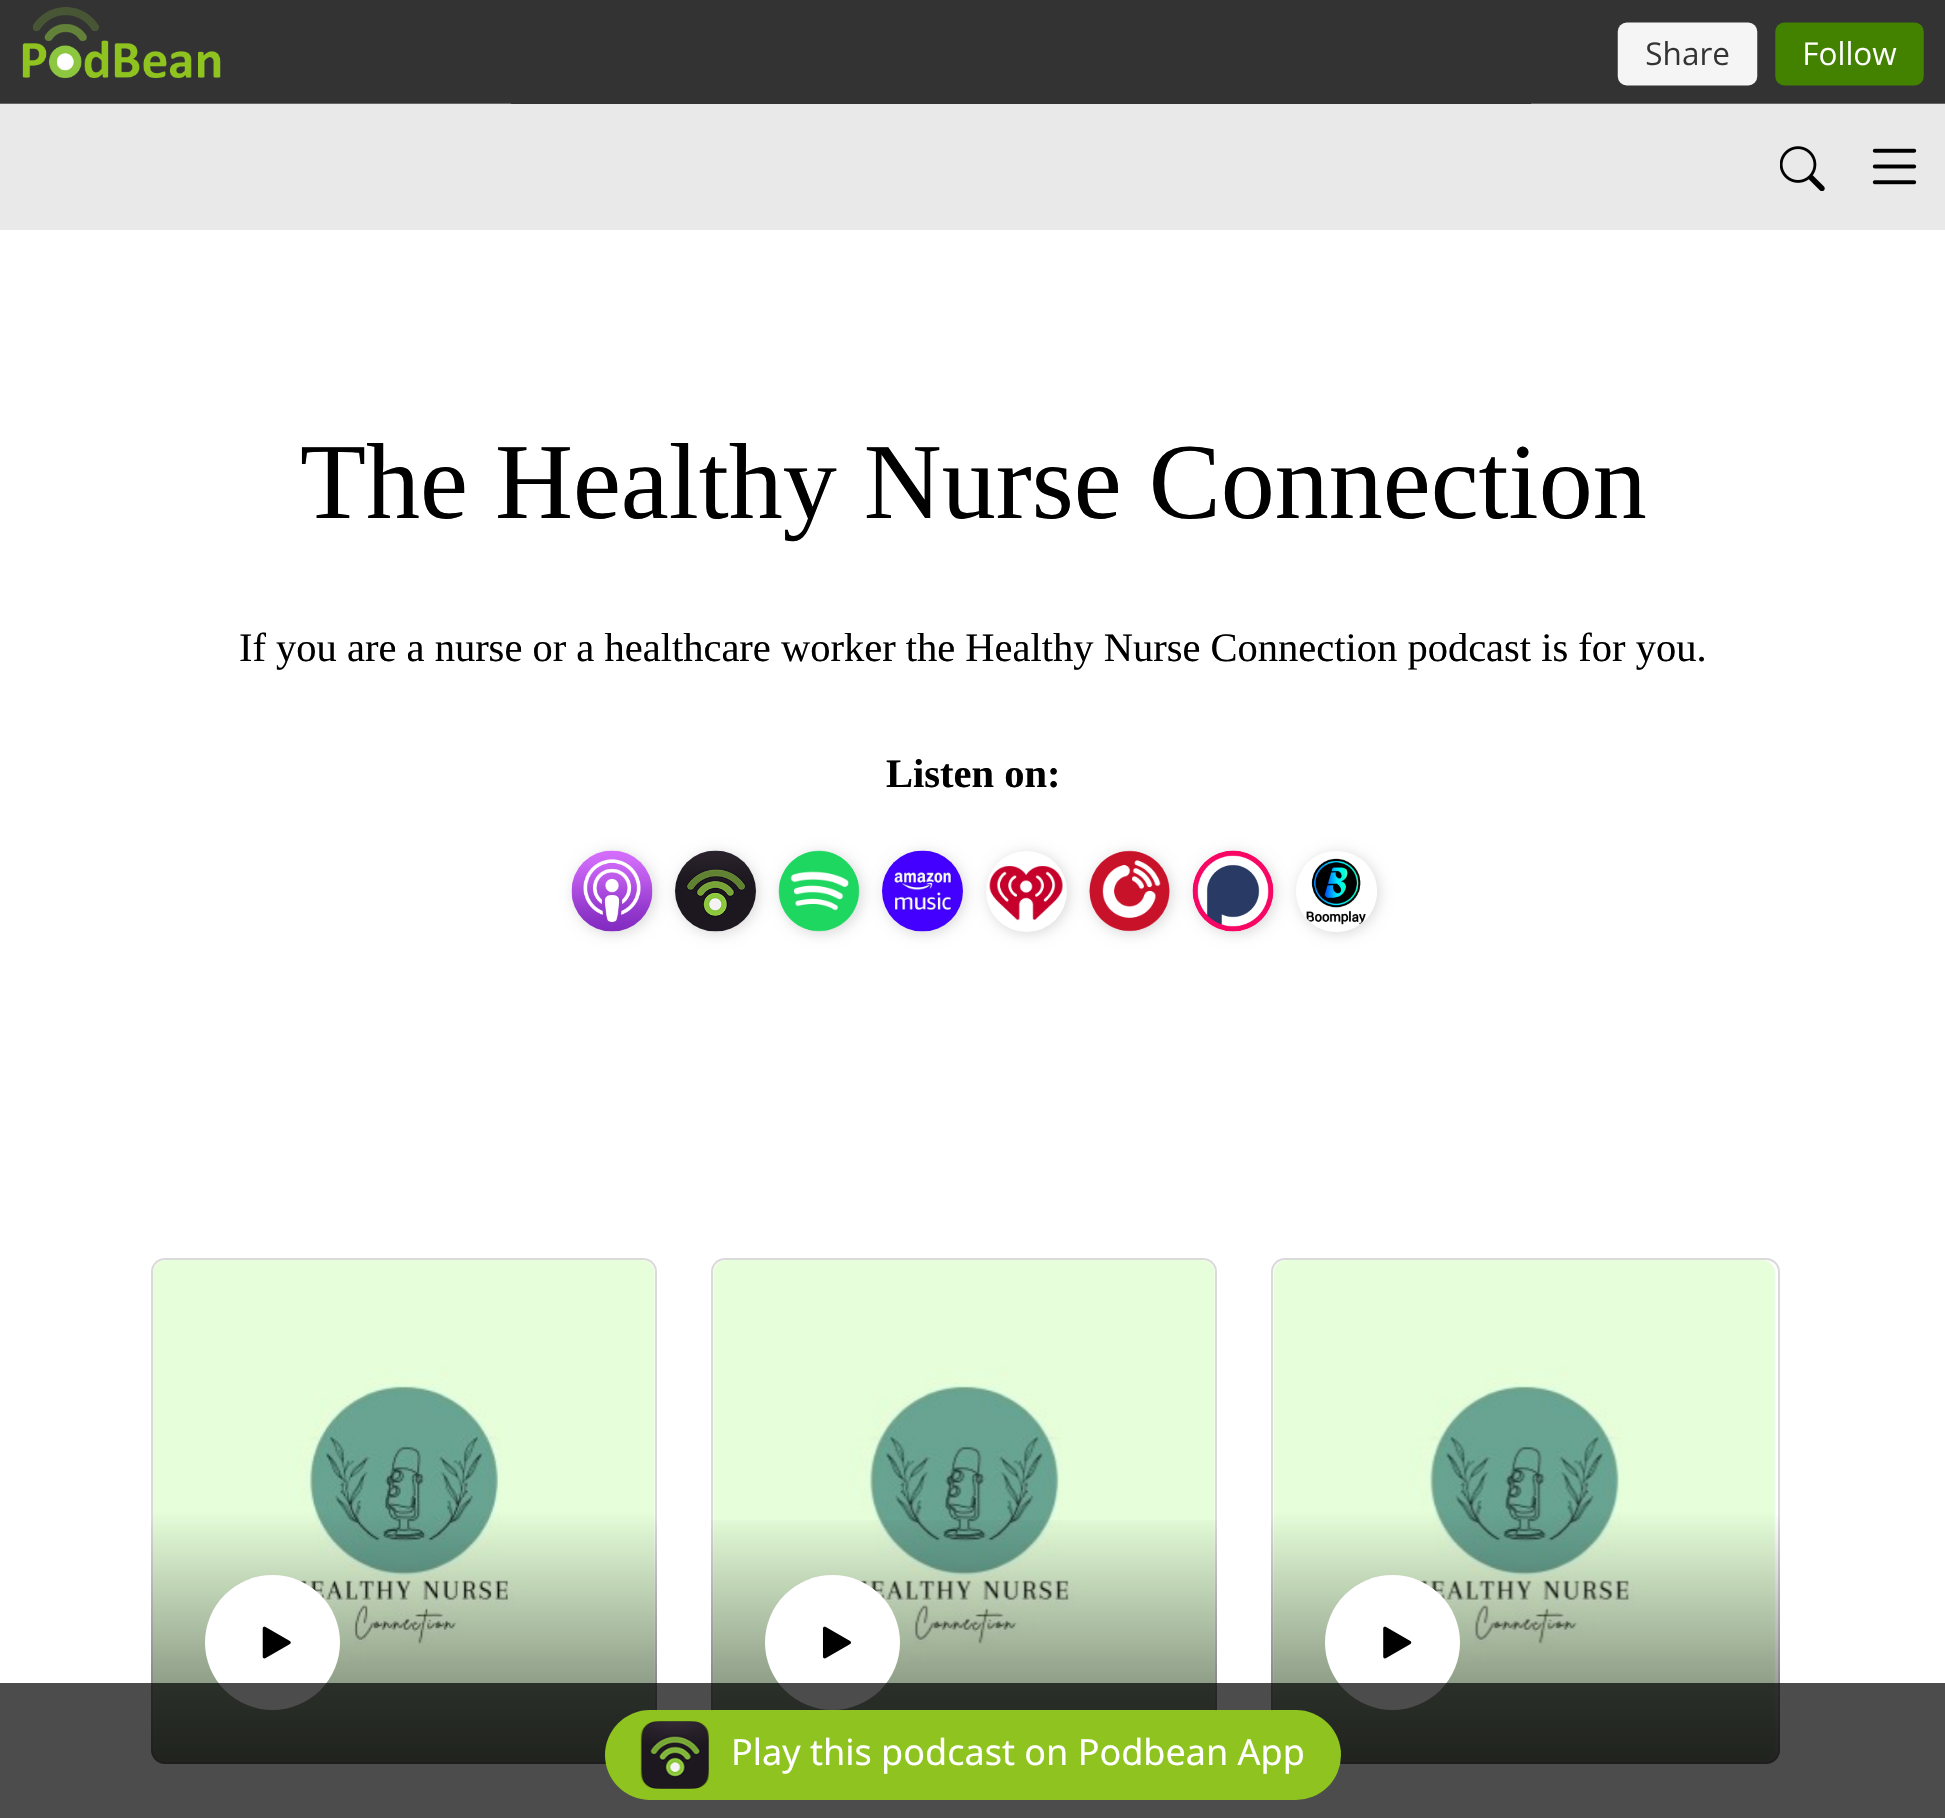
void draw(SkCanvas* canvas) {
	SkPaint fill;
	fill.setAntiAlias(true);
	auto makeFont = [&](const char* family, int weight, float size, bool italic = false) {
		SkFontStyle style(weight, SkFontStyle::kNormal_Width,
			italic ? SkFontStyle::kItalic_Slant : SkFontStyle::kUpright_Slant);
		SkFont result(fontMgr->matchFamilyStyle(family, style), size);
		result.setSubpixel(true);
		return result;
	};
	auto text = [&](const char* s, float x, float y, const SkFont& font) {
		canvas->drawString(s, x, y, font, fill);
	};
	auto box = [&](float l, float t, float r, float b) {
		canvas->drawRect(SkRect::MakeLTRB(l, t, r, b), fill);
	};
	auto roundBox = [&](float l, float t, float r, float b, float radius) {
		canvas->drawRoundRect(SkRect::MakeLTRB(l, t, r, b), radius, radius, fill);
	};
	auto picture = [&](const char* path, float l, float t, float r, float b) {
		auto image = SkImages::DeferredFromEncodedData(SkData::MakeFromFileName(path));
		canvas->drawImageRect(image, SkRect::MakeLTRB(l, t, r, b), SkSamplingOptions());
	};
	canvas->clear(0xFFFFFFFF);
	fill.setColor(0xFF333333);
	box(0, 0, 1945, 7);
	picture("image0.png", 0, 7, 1945, 104);
	fill.setColor(0xFFE9E9E9);
	box(0, 104, 1945, 230);
	picture("image1.png", 1780, 146, 1825, 191);
	picture("image2.png", 1872, 148, 1917, 185);
	fill.setColor(0x26000000);
	fill.setMaskFilter(SkMaskFilter::MakeBlur(kNormal_SkBlurStyle, 7));
	canvas->drawRoundRect(SkRect::MakeLTRB(574, 853, 655, 934), 40.5f, 40.5f, fill);
	fill.setMaskFilter(nullptr);
	picture("image3.png", 571, 850, 653, 932);
	fill.setMaskFilter(SkMaskFilter::MakeBlur(kNormal_SkBlurStyle, 7));
	canvas->drawRoundRect(SkRect::MakeLTRB(677, 853, 758, 934), 40.5f, 40.5f, fill);
	fill.setMaskFilter(nullptr);
	picture("image4.png", 675, 850, 756, 932);
	fill.setMaskFilter(SkMaskFilter::MakeBlur(kNormal_SkBlurStyle, 7));
	canvas->drawRoundRect(SkRect::MakeLTRB(781, 853, 862, 934), 40.5f, 40.5f, fill);
	fill.setMaskFilter(nullptr);
	picture("image5.png", 778, 850, 860, 932);
	fill.setMaskFilter(SkMaskFilter::MakeBlur(kNormal_SkBlurStyle, 7));
	canvas->drawRoundRect(SkRect::MakeLTRB(884, 853, 965, 934), 40.5f, 40.5f, fill);
	fill.setMaskFilter(nullptr);
	picture("image6.png", 882, 850, 963, 932);
	fill.setMaskFilter(SkMaskFilter::MakeBlur(kNormal_SkBlurStyle, 7));
	canvas->drawRoundRect(SkRect::MakeLTRB(988, 853, 1069, 934), 40.5f, 40.5f, fill);
	fill.setMaskFilter(nullptr);
	fill.setColor(0xFFFFFFFF);
	canvas->drawCircle(1026.5f, 891.5f, 40.5f, fill);
	picture("image7.png", 989, 866, 1063, 921);
	fill.setColor(0x26000000);
	fill.setMaskFilter(SkMaskFilter::MakeBlur(kNormal_SkBlurStyle, 7));
	canvas->drawRoundRect(SkRect::MakeLTRB(1091, 853, 1172, 934), 40.5f, 40.5f, fill);
	fill.setMaskFilter(nullptr);
	picture("image8.png", 1089, 850, 1170, 932);
	fill.setMaskFilter(SkMaskFilter::MakeBlur(kNormal_SkBlurStyle, 7));
	canvas->drawRoundRect(SkRect::MakeLTRB(1195, 853, 1276, 934), 40.5f, 40.5f, fill);
	fill.setMaskFilter(nullptr);
	picture("image9.png", 1192, 850, 1274, 932);
	canvas->save();
	canvas->clipPath(SkPathBuilder(SkPathFillType::kEvenOdd).moveTo(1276, 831).lineTo(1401, 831).lineTo(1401, 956).lineTo(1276, 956).close().moveTo(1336.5f, 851).cubicTo(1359, 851, 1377, 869, 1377, 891.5f).cubicTo(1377, 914, 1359, 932, 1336.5f, 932).cubicTo(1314, 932, 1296, 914, 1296, 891.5f).cubicTo(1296, 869, 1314, 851, 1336.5f, 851).close().detach(), true);
	fill.setMaskFilter(SkMaskFilter::MakeBlur(kNormal_SkBlurStyle, 7));
	canvas->drawRoundRect(SkRect::MakeLTRB(1298, 853, 1379, 934), 40.5f, 40.5f, fill);
	fill.setMaskFilter(nullptr);
	canvas->restore();
	picture("image10.png", 1303, 858, 1377, 931);
	fill.setStyle(SkPaint::kStroke_Style);
	fill.setStrokeWidth(2);
	fill.setColor(0xFFDADADA);
	canvas->drawRoundRect(SkRect::MakeLTRB(152, 1259, 656, 1763), 13, 13, fill);
	picture("image11.png", 153, 1260, 655, 1762);
	fill.setStyle(SkPaint::kFill_Style);
	{
		const SkColor colors[] = {0x00000000, 0x8C000000};
		const float stops[] = {0, 1};
		const SkPoint ends[] = {{404, 1510}, {404, 1764}};
		fill.setShader(SkGradientShader::MakeLinear(ends, colors, stops, 2, SkTileMode::kClamp));
		fill.setAlpha(255);
	}
	roundBox(151, 1510, 657, 1764, 14);
	fill.setShader(nullptr);
	fill.setColor(0xFFFFFFFF);
	canvas->drawCircle(272.5f, 1642.5f, 67.5f, fill);
	picture("image12.png", 262, 1626, 291, 1659);
	fill.setStyle(SkPaint::kStroke_Style);
	fill.setColor(0xFFDADADA);
	canvas->drawRoundRect(SkRect::MakeLTRB(712, 1259, 1216, 1763), 13, 13, fill);
	picture("image13.png", 713, 1260, 1215, 1710);
	fill.setStyle(SkPaint::kFill_Style);
	{
		const SkColor colors[] = {0x00000000, 0x8C000000};
		const float stops[] = {0, 1};
		const SkPoint ends[] = {{964, 1510}, {964, 1764}};
		fill.setShader(SkGradientShader::MakeLinear(ends, colors, stops, 2, SkTileMode::kClamp));
		fill.setAlpha(255);
	}
	box(711, 1520, 1217, 1710);
	fill.setShader(nullptr);
	fill.setColor(0xFFFFFFFF);
	canvas->drawCircle(832.5f, 1642.5f, 67.5f, fill);
	picture("image14.png", 822, 1626, 851, 1659);
	fill.setStyle(SkPaint::kStroke_Style);
	fill.setColor(0xFFDADADA);
	canvas->drawRoundRect(SkRect::MakeLTRB(1272, 1259, 1779, 1763), 13, 13, fill);
	picture("image15.png", 1273, 1260, 1776, 1762);
	fill.setStyle(SkPaint::kFill_Style);
	{
		const SkColor colors[] = {0x00000000, 0x8C000000};
		const float stops[] = {0, 1};
		const SkPoint ends[] = {{1526, 1510}, {1526, 1764}};
		fill.setShader(SkGradientShader::MakeLinear(ends, colors, stops, 2, SkTileMode::kClamp));
		fill.setAlpha(255);
	}
	roundBox(1271, 1510, 1780, 1764, 14);
	fill.setShader(nullptr);
	fill.setColor(0xFFFFFFFF);
	canvas->drawCircle(1392.5f, 1642.5f, 67.5f, fill);
	picture("image16.png", 1383, 1626, 1412, 1659);
	fill.setColor(0xB3000000);
	box(0, 1683, 1945, 1818);
	fill.setColor(0xFF8FC31F);
	roundBox(605, 1710, 1341, 1800, 45);
	picture("image17.png", 640, 1721, 709, 1789);
	auto font1 = makeFont("Liberation Serif", 400, 108);
	fill.setColor(0xFF000000);
	text("The Healthy Nurse Connection", 300, 518, font1);
	auto font2 = makeFont("Liberation Serif", 400, 40.5f);
	text("If you are a nurse or a healthcare worker the Healthy Nurse Connection podcast is for you.", 239, 661, font2);
	auto font3 = makeFont("Liberation Serif", 700, 40.5f);
	text("Listen on:", 886, 787, font3);
	auto font4 = makeFont("Noto Sans", 400, 36);
	fill.setColor(0xFFFFFFFF);
	text("Play this podcast on Podbean App", 731, 1765, font4);
}
